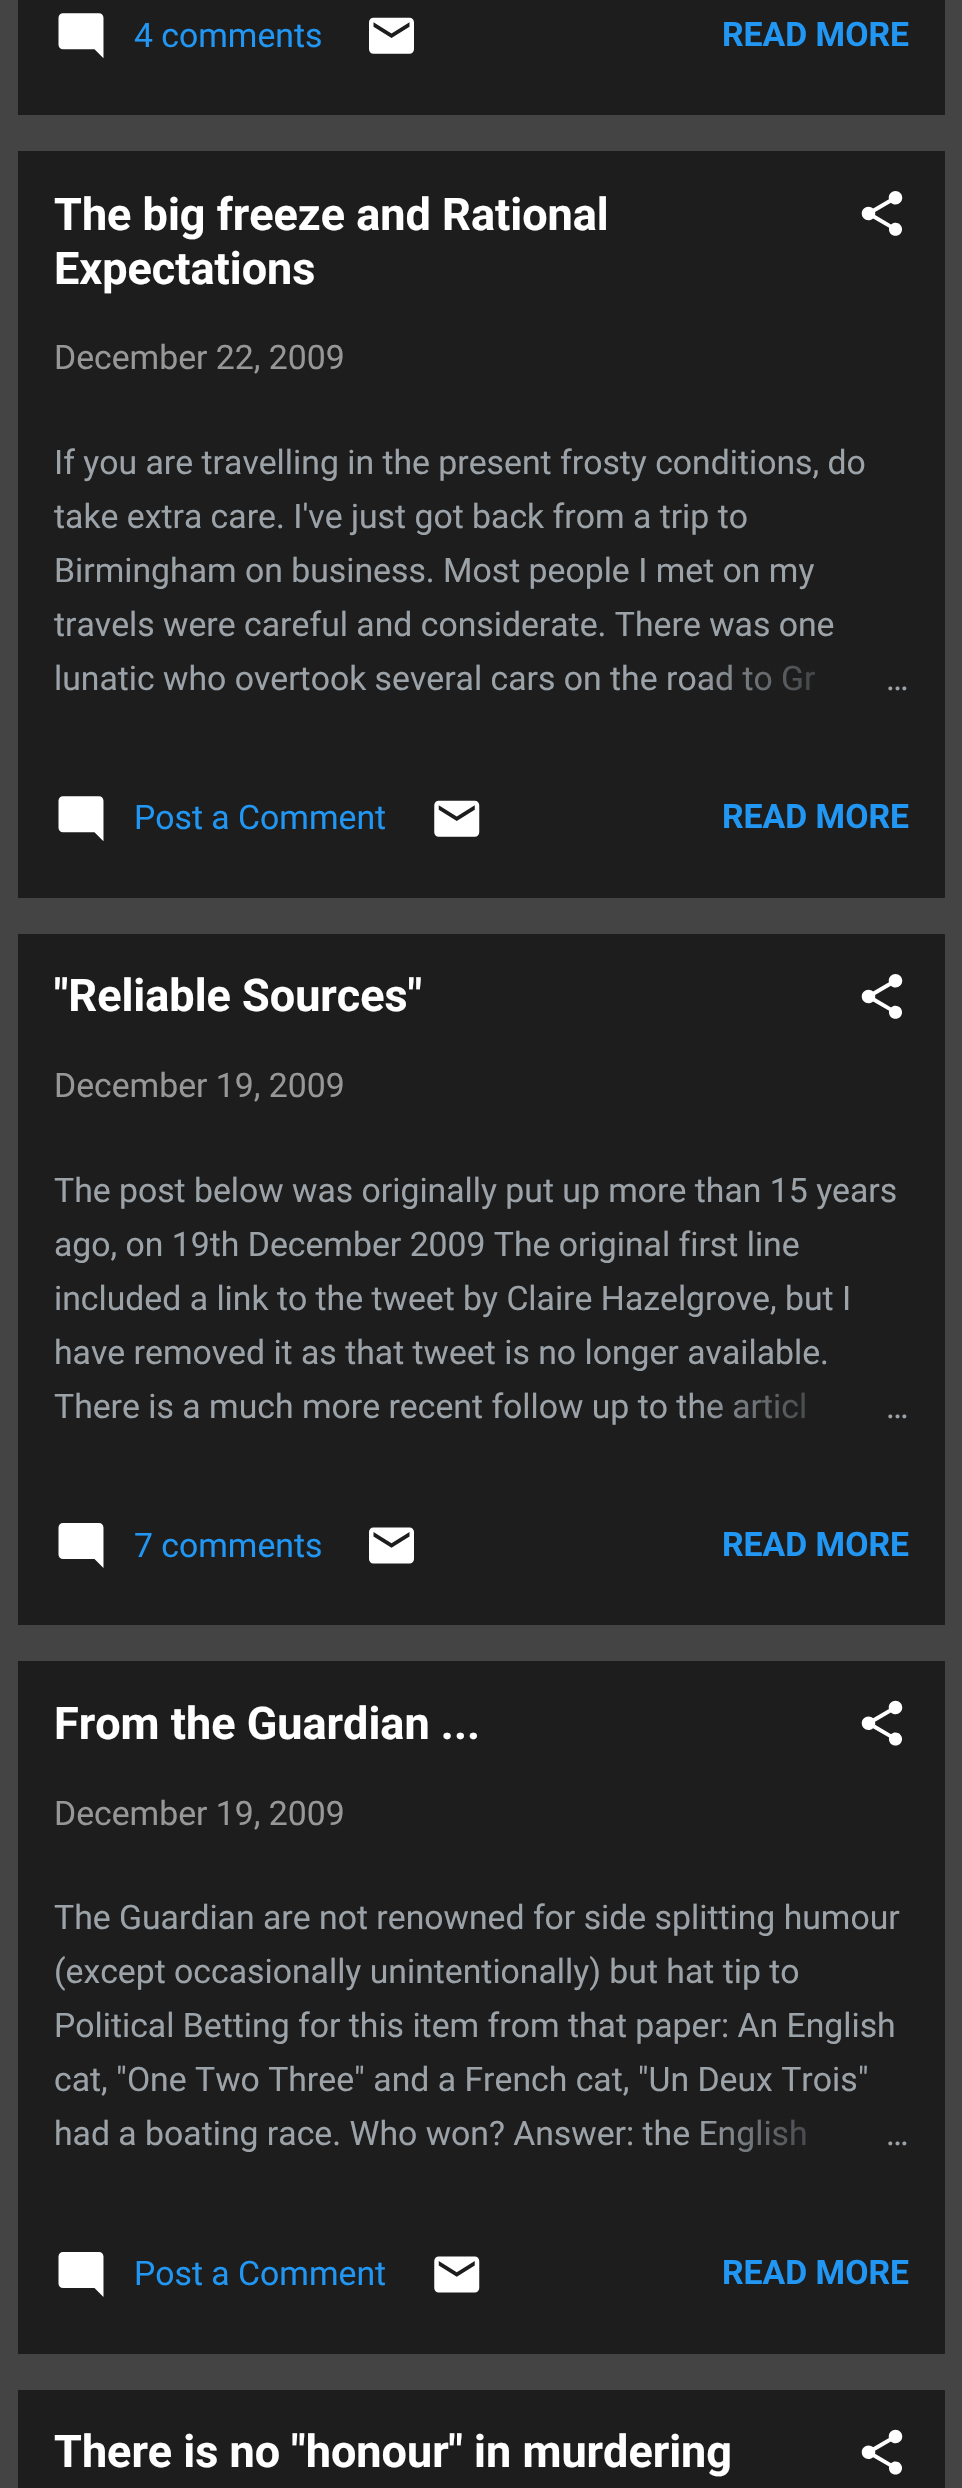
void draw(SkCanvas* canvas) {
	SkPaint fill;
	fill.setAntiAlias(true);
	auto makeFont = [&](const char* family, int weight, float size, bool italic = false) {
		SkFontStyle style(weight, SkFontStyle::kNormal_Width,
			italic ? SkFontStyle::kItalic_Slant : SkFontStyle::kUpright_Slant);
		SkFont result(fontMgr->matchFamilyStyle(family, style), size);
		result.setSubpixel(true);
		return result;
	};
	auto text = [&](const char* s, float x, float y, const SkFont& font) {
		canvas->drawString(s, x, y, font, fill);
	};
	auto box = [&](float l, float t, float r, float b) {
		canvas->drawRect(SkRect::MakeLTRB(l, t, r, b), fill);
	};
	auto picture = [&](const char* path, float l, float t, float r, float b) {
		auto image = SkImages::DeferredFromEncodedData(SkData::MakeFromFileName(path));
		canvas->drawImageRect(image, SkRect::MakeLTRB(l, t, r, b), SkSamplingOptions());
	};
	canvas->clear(0xFF444444);
	fill.setColor(0xFF1D1D1D);
	box(18, 0, 945, 115);
	picture("image0.png", 58, 13, 104, 58);
	picture("image1.png", 369, 17, 414, 54);
	box(18, 151, 945, 898);
	picture("image2.png", 861, 191, 903, 236);
	picture("image0.png", 58, 796, 104, 841);
	picture("image3.png", 434, 800, 480, 837);
	box(18, 934, 945, 1625);
	picture("image4.png", 861, 974, 903, 1019);
	picture("image5.png", 58, 1523, 104, 1568);
	picture("image6.png", 369, 1527, 414, 1564);
	box(18, 1661, 945, 2354);
	picture("image7.png", 861, 1700, 903, 1746);
	picture("image8.png", 58, 2252, 104, 2297);
	picture("image9.png", 434, 2256, 480, 2293);
	box(18, 2390, 945, 2488);
	picture("image7.png", 861, 2429, 903, 2475);
	auto font1 = makeFont("Roboto", 400, 33.75f);
	fill.setColor(0xFF2196F3);
	text("4 comments", 134, 47, font1);
	auto font2 = makeFont("Roboto", 700, 33.75f);
	text("READ MORE", 722, 46, font2);
	auto font3 = makeFont("Roboto", 700, 45);
	fill.setColor(0xFFFFFFFF);
	text("The big freeze and Rational", 54, 230, font3);
	text("Expectations", 54, 284, font3);
	fill.setColor(0xFF979797);
	text("December 22, 2009", 54, 369, font1);
	fill.setColor(0xFF9BA2A8);
	text("If you are travelling in the present frosty conditions, do", 54, 474, font1);
	text("take extra care. I've just got back from a trip to", 54, 528, font1);
	text("Birmingham on business. Most people I met on my", 54, 582, font1);
	text("travels were careful and considerate. There was one", 54, 636, font1);
	text("lunatic who overtook several cars on the road to Gr", 54, 690, font1);
	{
		const SkColor colors[] = {0xFF1D1D1D, 0xFF1D1D1D, 0x001D1D1D};
		const float stops[] = {0, 0.2f, 1};
		const SkPoint ends[] = {{909, 680}, {693, 680}};
		fill.setShader(SkGradientShader::MakeLinear(ends, colors, stops, 3, SkTileMode::kClamp));
		fill.setAlpha(255);
	}
	box(699, 664, 815, 691);
	fill.setShader(nullptr);
	fill.setColor(0xFF9BA2A8);
	text("…", 886, 690, font1);
	fill.setColor(0xFF2196F3);
	text("Post a Comment", 134, 829, font1);
	text("READ MORE", 722, 828, font2);
	fill.setColor(0xFFFFFFFF);
	text("\"Reliable Sources\"", 54, 1011, font3);
	fill.setColor(0xFF979797);
	text("December 19, 2009", 54, 1097, font1);
	fill.setColor(0xFF9BA2A8);
	text("The post below was originally put up more than 15 years", 54, 1202, font1);
	text("ago, on 19th December 2009 The original first line", 54, 1256, font1);
	text("included a link to the tweet by Claire Hazelgrove, but I", 54, 1310, font1);
	text("have removed it as that tweet is no longer available.", 54, 1364, font1);
	text("There is a much more recent follow up to the articl", 54, 1418, font1);
	{
		const SkColor colors[] = {0xFF1D1D1D, 0xFF1D1D1D, 0x001D1D1D};
		const float stops[] = {0, 0.2f, 1};
		const SkPoint ends[] = {{909, 1406}, {693, 1406}};
		fill.setShader(SkGradientShader::MakeLinear(ends, colors, stops, 3, SkTileMode::kClamp));
		fill.setAlpha(255);
	}
	box(697, 1392, 805, 1419);
	fill.setShader(nullptr);
	fill.setColor(0xFF9BA2A8);
	text("…", 886, 1418, font1);
	fill.setColor(0xFF2196F3);
	text("7 comments", 134, 1557, font1);
	text("READ MORE", 722, 1556, font2);
	fill.setColor(0xFFFFFFFF);
	text("From the Guardian ...", 54, 1739, font3);
	fill.setColor(0xFF979797);
	text("December 19, 2009", 54, 1825, font1);
	fill.setColor(0xFF9BA2A8);
	text("The Guardian are not renowned for side splitting humour", 54, 1929, font1);
	text("(except occasionally unintentionally) but hat tip to", 54, 1983, font1);
	text("Political Betting for this item from that paper: An English", 54, 2037, font1);
	text("cat, \"One Two Three\" and a French cat, \"Un Deux Trois\"", 54, 2091, font1);
	text("had a boating race. Who won? Answer: the English", 54, 2145, font1);
	{
		const SkColor colors[] = {0xFF1D1D1D, 0xFF1D1D1D, 0x001D1D1D};
		const float stops[] = {0, 0.2f, 1};
		const SkPoint ends[] = {{909, 2135}, {693, 2135}};
		fill.setShader(SkGradientShader::MakeLinear(ends, colors, stops, 3, SkTileMode::kClamp));
		fill.setAlpha(255);
	}
	box(701, 2119, 806, 2152);
	fill.setShader(nullptr);
	fill.setColor(0xFF9BA2A8);
	text("…", 886, 2145, font1);
	fill.setColor(0xFF2196F3);
	text("Post a Comment", 134, 2285, font1);
	text("READ MORE", 722, 2284, font2);
	fill.setColor(0xFFFFFFFF);
	text("There is no \"honour\" in murdering", 54, 2467, font3);
}
